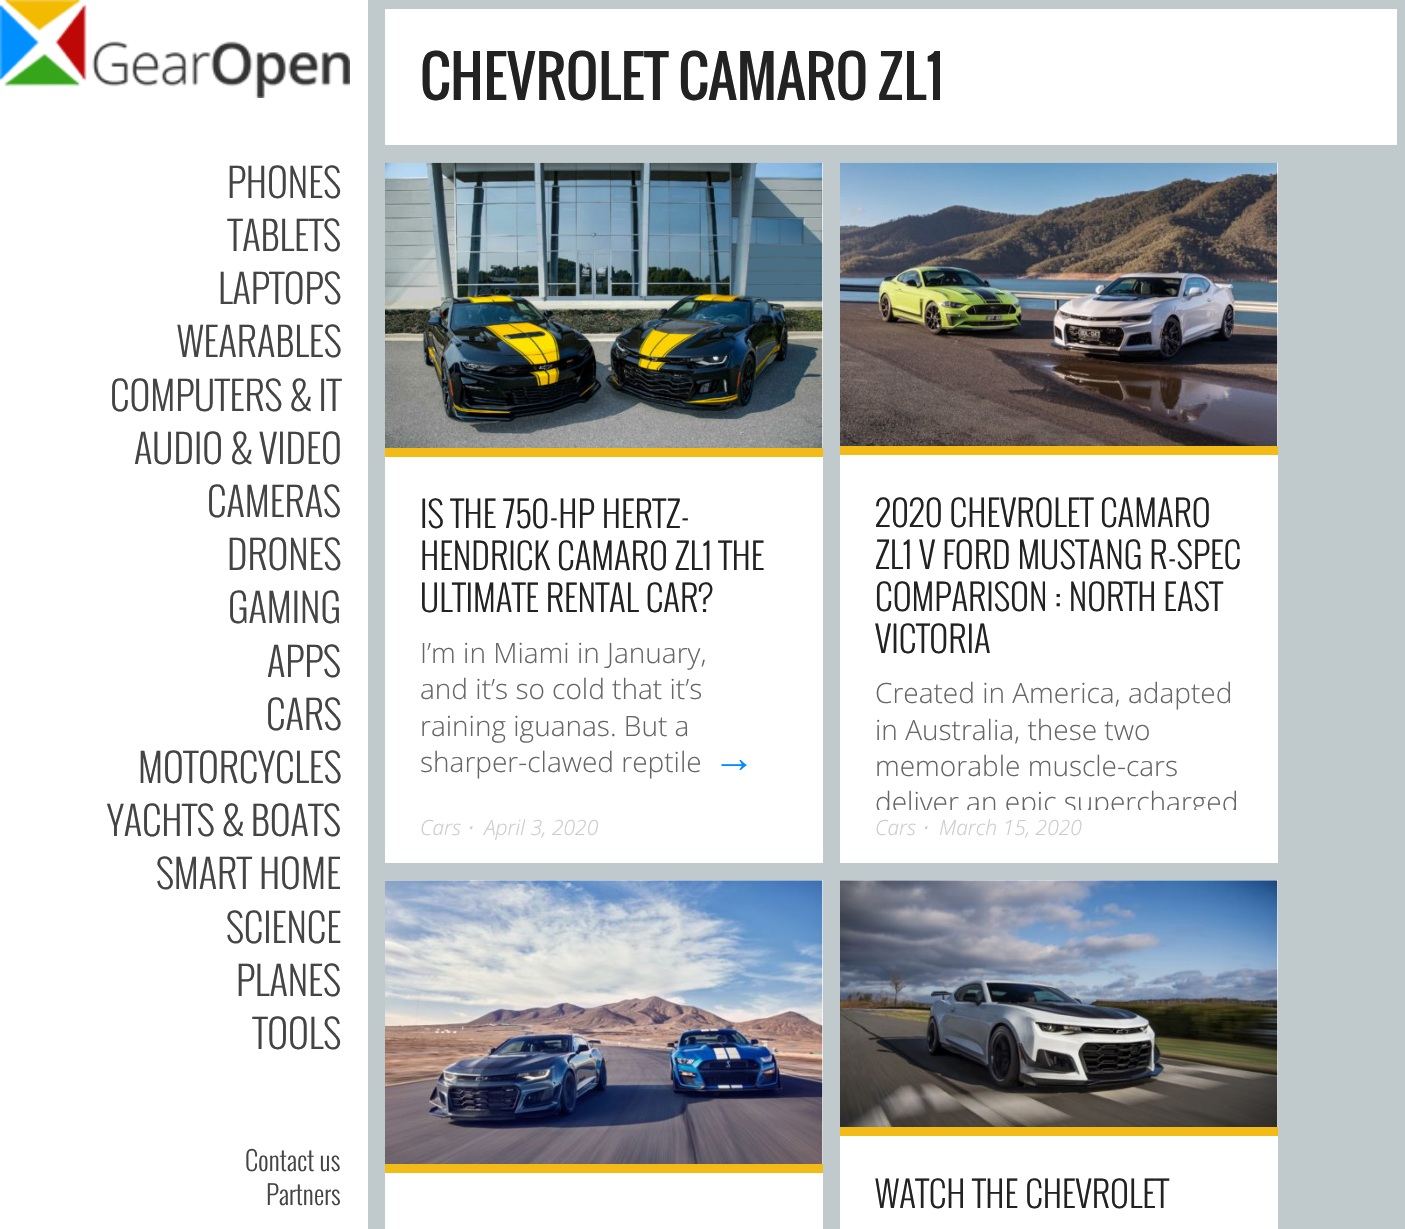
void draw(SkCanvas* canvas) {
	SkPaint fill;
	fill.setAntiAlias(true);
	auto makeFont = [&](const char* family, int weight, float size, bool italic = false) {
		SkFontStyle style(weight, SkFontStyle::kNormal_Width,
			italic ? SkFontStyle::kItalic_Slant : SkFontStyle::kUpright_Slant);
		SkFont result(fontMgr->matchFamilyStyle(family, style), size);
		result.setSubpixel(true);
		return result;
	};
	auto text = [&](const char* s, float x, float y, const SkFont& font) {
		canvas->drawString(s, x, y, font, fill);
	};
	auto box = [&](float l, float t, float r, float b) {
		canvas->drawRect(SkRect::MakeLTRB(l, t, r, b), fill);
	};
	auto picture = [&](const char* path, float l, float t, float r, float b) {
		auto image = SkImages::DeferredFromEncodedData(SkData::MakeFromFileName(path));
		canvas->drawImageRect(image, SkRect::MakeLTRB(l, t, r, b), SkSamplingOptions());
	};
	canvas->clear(0xFFC0C9CC);
	fill.setColor(0xFFFFFFFF);
	box(0, 0, 368, 1229);
	box(385, 9, 1397, 145);
	box(385, 163, 823, 863);
	picture("image0.png", 385, 162, 823, 448);
	fill.setColor(0xFFF2BB16);
	box(385, 448, 823, 457);
	fill.setColor(0xFFFFFFFF);
	box(840, 163, 1278, 810);
	picture("image1.png", 840, 162, 1278, 446);
	fill.setColor(0xFFF2BB16);
	box(840, 446, 1278, 455);
	fill.setColor(0xFFFFFFFF);
	box(385, 880, 823, 1229);
	picture("image2.png", 385, 880, 823, 1164);
	fill.setColor(0xFFF2BB16);
	box(385, 1164, 823, 1173);
	fill.setColor(0xFFFFFFFF);
	box(840, 880, 1278, 1229);
	picture("image3.png", 840, 880, 1278, 1127);
	fill.setColor(0xFFF2BB16);
	box(840, 1127, 1278, 1136);
	picture("image4.png", 0, 0, 350, 98);
	auto font1 = makeFont("Oswald", 400, 56);
	fill.setColor(0xFF222222);
	text("CHEVROLET CAMARO ZL1", 420, 100, font1);
	auto font2 = makeFont("Oswald", 300, 35);
	text("IS THE 750-HP HERTZ-", 420, 528, font2);
	text("HENDRICK CAMARO ZL1 THE", 420, 570, font2);
	text("ULTIMATE RENTAL CAR?", 420, 612, font2);
	auto font3 = makeFont("Open Sans", 300, 28);
	fill.setColor(0xFF666666);
	text("I’m in Miami in January,", 420, 663, font3);
	text("and it’s so cold that it’s", 420, 699, font3);
	text("raining iguanas. But a", 420, 736, font3);
	text("sharper-clawed reptile", 420, 772, font3);
	auto font4 = makeFont("Liberation Sans", 400, 42);
	fill.setColor(0xFF008CFF);
	text("→", 713, 772, font4);
	auto font5 = makeFont("Open Sans", 300, 21, true);
	fill.setColor(0xFFCCCCCC);
	text("Cars", 420, 835, font5);
	auto font6 = makeFont("DejaVu Sans", 400, 21, true);
	text("⋅", 466, 835, font6);
	text("April 3, 2020", 484, 835, font5);
	fill.setColor(0xFF222222);
	text("2020 CHEVROLET CAMARO", 875, 527, font2);
	text("ZL1 V FORD MUSTANG R-SPEC", 875, 569, font2);
	text("COMPARISON : NORTH EAST", 875, 611, font2);
	text("VICTORIA", 875, 653, font2);
	fill.setColor(0xFF666666);
	text("Created in America, adapted", 875, 703, font3);
	text("in Australia, these two", 875, 740, font3);
	text("memorable muscle-cars", 875, 776, font3);
	text("deliver an epic supercharged", 875, 812, font3);
	fill.setColor(0xFFFFFFFF);
	box(840, 810, 1278, 863);
	fill.setColor(0xFFCCCCCC);
	text("Cars", 875, 835, font5);
	text("⋅", 921, 835, font6);
	text("March 15, 2020", 939, 835, font5);
	fill.setColor(0xFF222222);
	text("WATCH THE CHEVROLET", 875, 1208, font2);
	auto font7 = makeFont("Oswald", 300, 38.5f);
	fill.setColor(0xFF444444);
	text("PHONES", 227, 198, font7);
	text("TABLETS", 228, 251, font7);
	text("LAPTOPS", 218, 304, font7);
	text("WEARABLES", 177, 357, font7);
	text("COMPUTERS & IT", 110, 411, font7);
	text("AUDIO & VIDEO", 134, 464, font7);
	text("CAMERAS", 207, 517, font7);
	text("DRONES", 227, 570, font7);
	text("GAMING", 228, 623, font7);
	text("APPS", 267, 677, font7);
	text("CARS", 266, 730, font7);
	text("MOTORCYCLES", 138, 783, font7);
	text("YACHTS & BOATS", 107, 836, font7);
	text("SMART HOME", 156, 889, font7);
	text("SCIENCE", 226, 943, font7);
	text("PLANES", 236, 996, font7);
	text("TOOLS", 253, 1049, font7);
	auto font8 = makeFont("Oswald", 300, 26);
	text("Contact us", 245, 1171, font8);
	text("Partners", 266, 1205, font8);
}
